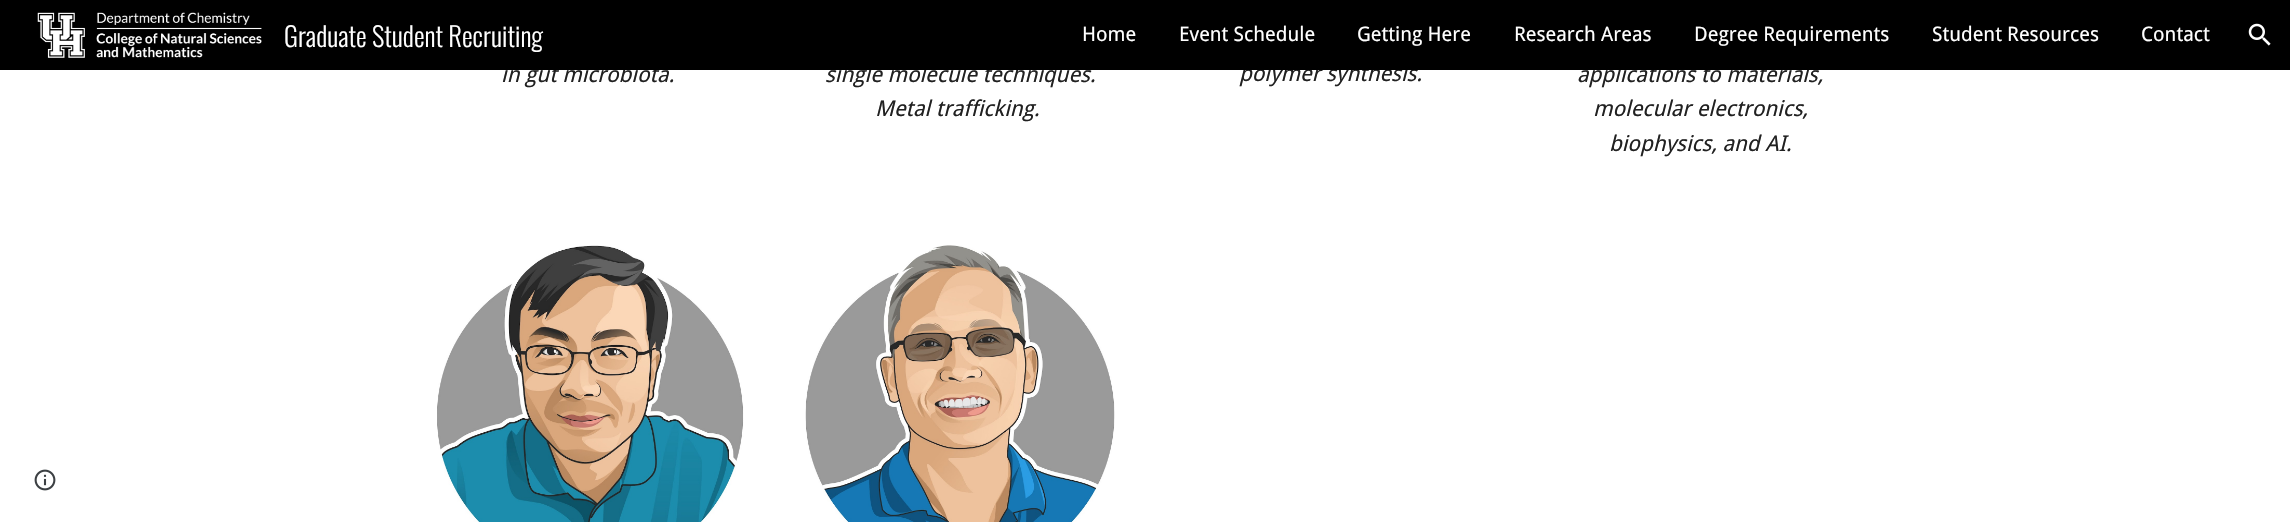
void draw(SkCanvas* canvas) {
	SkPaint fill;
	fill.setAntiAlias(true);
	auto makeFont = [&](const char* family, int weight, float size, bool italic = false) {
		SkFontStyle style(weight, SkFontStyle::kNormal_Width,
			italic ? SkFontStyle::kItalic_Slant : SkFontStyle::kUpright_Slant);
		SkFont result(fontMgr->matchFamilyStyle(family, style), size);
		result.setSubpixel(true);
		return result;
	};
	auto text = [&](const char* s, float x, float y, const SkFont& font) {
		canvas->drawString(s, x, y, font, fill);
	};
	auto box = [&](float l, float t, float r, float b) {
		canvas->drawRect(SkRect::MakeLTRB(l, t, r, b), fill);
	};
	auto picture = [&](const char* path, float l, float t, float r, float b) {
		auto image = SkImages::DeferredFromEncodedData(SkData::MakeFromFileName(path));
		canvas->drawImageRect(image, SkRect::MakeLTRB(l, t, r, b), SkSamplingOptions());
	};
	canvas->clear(0xFFFFFFFF);
	picture("image2.png", 437, 245, 744, 522);
	picture("image3.png", 805, 245, 1115, 522);
	picture("image4.png", 34, 469, 56, 491);
	auto font1 = makeFont("Droid Sans", 400, 21.75f, true);
	fill.setColor(0xFF212121);
	text("in gut microbiota.", 501, 82, font1);
	text("single molecule techniques.", 825, 82, font1);
	text("Metal trafficking.", 875, 116, font1);
	text("polymer synthesis.", 1239, 81, font1);
	text("applications to materials,", 1577, 82, font1);
	fill.setColor(0xFF000000);
	box(0, 0, 2290, 70);
	picture("image1.png", 2248, 23, 2271, 46);
	auto font2 = makeFont("Droid Sans", 400, 20);
	fill.setColor(0xFFFFFFFF);
	text("Contact", 2141, 41, font2);
	text("Student Resources", 1932, 41, font2);
	text("Degree Requirements", 1694, 41, font2);
	text("Research Areas", 1514, 41, font2);
	text("Getting Here", 1357, 41, font2);
	text("Event Schedule", 1179, 41, font2);
	text("Home", 1082, 41, font2);
	auto font3 = makeFont("Oswald", 300, 26.75f);
	text("Graduate Student Recruiting", 284, 47, font3);
	picture("image0.png", 37, 12, 262, 58);
	fill.setColor(0xFF212121);
	text("molecular electronics,", 1593, 116, font1);
	text("biophysics, and AI.", 1609, 151, font1);
}
